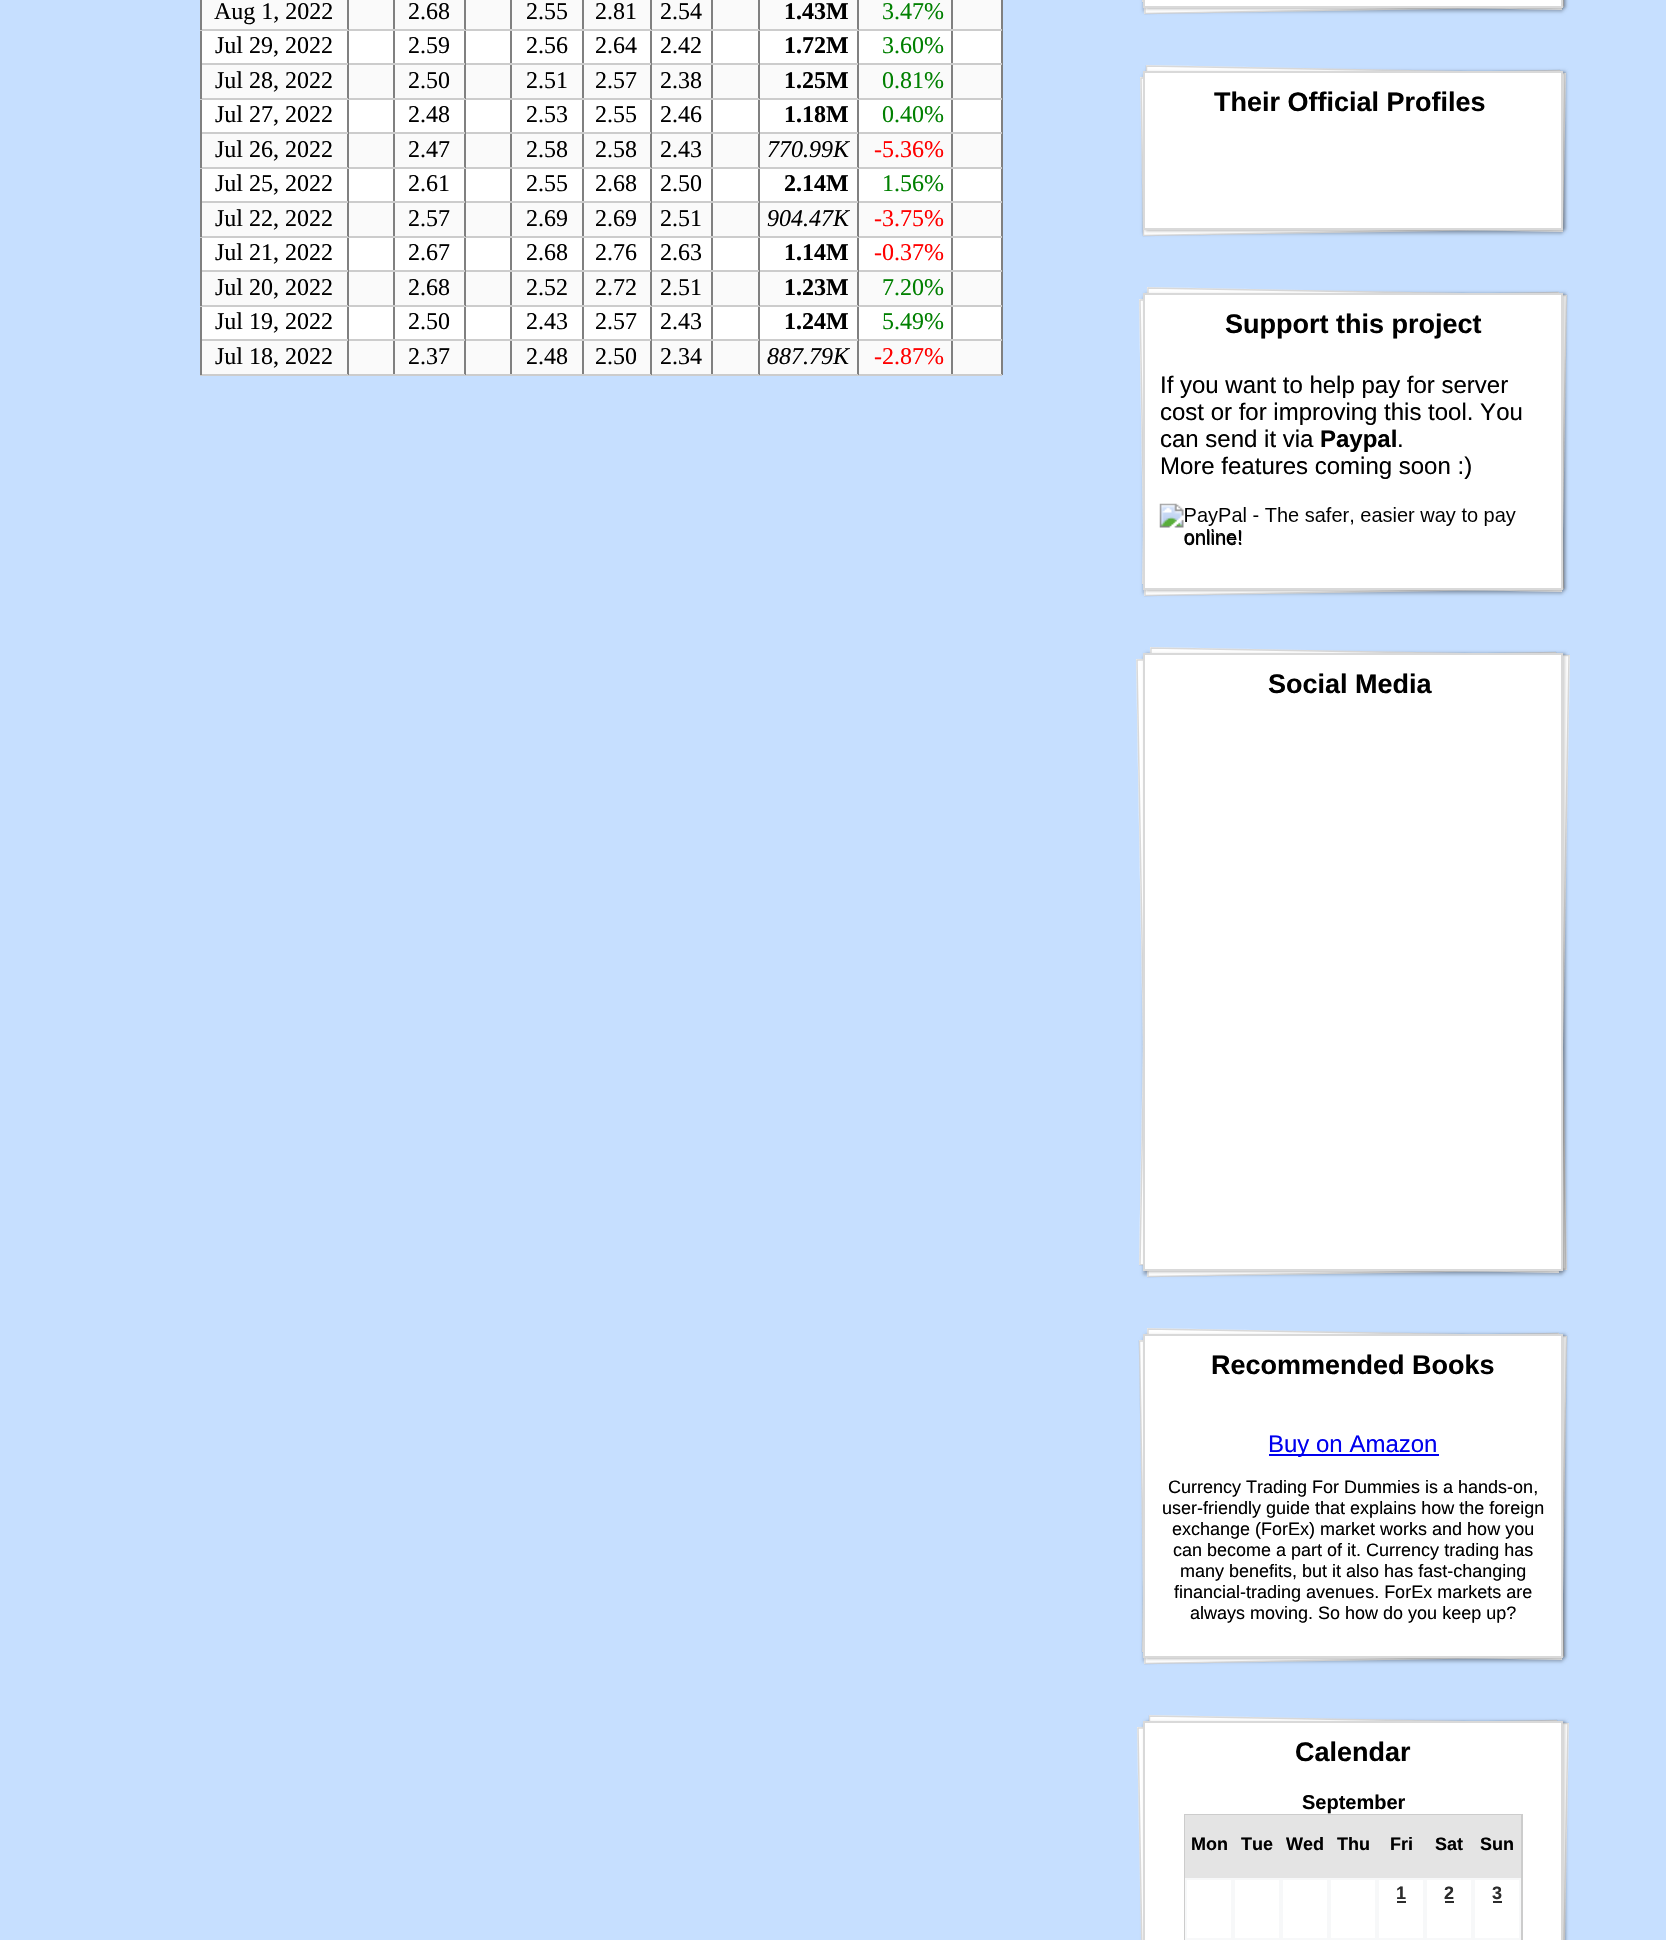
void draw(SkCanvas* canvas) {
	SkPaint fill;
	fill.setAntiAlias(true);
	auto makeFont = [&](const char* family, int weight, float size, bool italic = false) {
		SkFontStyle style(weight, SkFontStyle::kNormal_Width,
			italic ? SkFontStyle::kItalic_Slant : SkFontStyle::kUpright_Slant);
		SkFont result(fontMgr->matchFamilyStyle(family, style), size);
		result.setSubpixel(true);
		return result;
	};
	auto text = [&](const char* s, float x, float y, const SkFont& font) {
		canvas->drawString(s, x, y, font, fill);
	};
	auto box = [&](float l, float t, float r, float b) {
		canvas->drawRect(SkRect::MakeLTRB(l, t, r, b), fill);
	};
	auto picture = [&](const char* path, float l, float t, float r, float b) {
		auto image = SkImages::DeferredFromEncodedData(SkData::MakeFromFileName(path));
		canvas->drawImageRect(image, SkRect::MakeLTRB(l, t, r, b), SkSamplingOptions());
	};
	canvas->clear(0xFFC6DFFF);
	fill.setColor(0xFF808080);
	box(1001, 0, 1003, 375);
	fill.setColor(0xFFFAFAFA);
	box(202, 0, 347, 29);
	fill.setColor(0xFFFFFFFF);
	box(202, 31, 1001, 63);
	box(202, 100, 1001, 132);
	box(202, 169, 1001, 201);
	box(202, 238, 1001, 270);
	box(202, 307, 1001, 339);
	fill.setColor(0xFFCCCCCC);
	box(951, 374, 1002, 376);
	fill.setColor(0xFF808080);
	box(951, 339, 953, 375);
	fill.setColor(0xFFCCCCCC);
	box(951, 339, 1002, 341);
	fill.setColor(0xFF808080);
	box(951, 305, 953, 341);
	fill.setColor(0xFFCCCCCC);
	box(951, 305, 1002, 307);
	fill.setColor(0xFF808080);
	box(951, 270, 953, 306);
	fill.setColor(0xFFCCCCCC);
	box(951, 270, 1002, 272);
	fill.setColor(0xFF808080);
	box(951, 236, 953, 272);
	fill.setColor(0xFFCCCCCC);
	box(951, 236, 1002, 238);
	fill.setColor(0xFF808080);
	box(951, 201, 953, 237);
	fill.setColor(0xFFCCCCCC);
	box(951, 201, 1002, 203);
	fill.setColor(0xFF808080);
	box(951, 167, 953, 203);
	fill.setColor(0xFFCCCCCC);
	box(951, 167, 1002, 169);
	fill.setColor(0xFF808080);
	box(951, 132, 953, 168);
	fill.setColor(0xFFCCCCCC);
	box(951, 132, 1002, 134);
	fill.setColor(0xFF808080);
	box(951, 98, 953, 134);
	fill.setColor(0xFFCCCCCC);
	box(951, 98, 1002, 100);
	fill.setColor(0xFF808080);
	box(951, 63, 953, 99);
	fill.setColor(0xFFCCCCCC);
	box(951, 63, 1002, 65);
	fill.setColor(0xFF808080);
	box(951, 29, 953, 65);
	fill.setColor(0xFFCCCCCC);
	box(951, 29, 1002, 31);
	fill.setColor(0xFF808080);
	box(951, 0, 953, 30);
	fill.setColor(0xFFCCCCCC);
	box(857, 374, 953, 376);
	fill.setColor(0xFF808080);
	box(857, 339, 859, 375);
	fill.setColor(0xFFCCCCCC);
	box(857, 339, 953, 341);
	fill.setColor(0xFF808080);
	box(857, 305, 859, 341);
	fill.setColor(0xFFCCCCCC);
	box(857, 305, 953, 307);
	fill.setColor(0xFF808080);
	box(857, 270, 859, 306);
	fill.setColor(0xFFCCCCCC);
	box(857, 270, 953, 272);
	fill.setColor(0xFF808080);
	box(857, 236, 859, 272);
	fill.setColor(0xFFCCCCCC);
	box(857, 236, 953, 238);
	fill.setColor(0xFF808080);
	box(857, 201, 859, 237);
	fill.setColor(0xFFCCCCCC);
	box(857, 201, 953, 203);
	fill.setColor(0xFF808080);
	box(857, 167, 859, 203);
	fill.setColor(0xFFCCCCCC);
	box(857, 167, 953, 169);
	fill.setColor(0xFF808080);
	box(857, 132, 859, 168);
	fill.setColor(0xFFCCCCCC);
	box(857, 132, 953, 134);
	fill.setColor(0xFF808080);
	box(857, 98, 859, 134);
	fill.setColor(0xFFCCCCCC);
	box(857, 98, 953, 100);
	fill.setColor(0xFF808080);
	box(857, 63, 859, 99);
	fill.setColor(0xFFCCCCCC);
	box(857, 63, 953, 65);
	fill.setColor(0xFF808080);
	box(857, 29, 859, 65);
	fill.setColor(0xFFCCCCCC);
	box(857, 29, 953, 31);
	fill.setColor(0xFF808080);
	box(857, 0, 859, 30);
	fill.setColor(0xFFCCCCCC);
	box(758, 374, 858, 376);
	fill.setColor(0xFF808080);
	box(758, 339, 760, 375);
	fill.setColor(0xFFCCCCCC);
	box(758, 339, 858, 341);
	fill.setColor(0xFF808080);
	box(758, 305, 760, 341);
	fill.setColor(0xFFCCCCCC);
	box(758, 305, 858, 307);
	fill.setColor(0xFF808080);
	box(758, 270, 760, 306);
	fill.setColor(0xFFCCCCCC);
	box(758, 270, 858, 272);
	fill.setColor(0xFF808080);
	box(758, 236, 760, 272);
	fill.setColor(0xFFCCCCCC);
	box(758, 236, 858, 238);
	fill.setColor(0xFF808080);
	box(758, 201, 760, 237);
	fill.setColor(0xFFCCCCCC);
	box(758, 201, 858, 203);
	fill.setColor(0xFF808080);
	box(758, 167, 760, 203);
	fill.setColor(0xFFCCCCCC);
	box(758, 167, 858, 169);
	fill.setColor(0xFF808080);
	box(758, 132, 760, 168);
	fill.setColor(0xFFCCCCCC);
	box(758, 132, 858, 134);
	fill.setColor(0xFF808080);
	box(758, 98, 760, 134);
	fill.setColor(0xFFCCCCCC);
	box(758, 98, 858, 100);
	fill.setColor(0xFF808080);
	box(758, 63, 760, 99);
	fill.setColor(0xFFCCCCCC);
	box(758, 63, 858, 65);
	fill.setColor(0xFF808080);
	box(758, 29, 760, 65);
	fill.setColor(0xFFCCCCCC);
	box(758, 29, 858, 31);
	fill.setColor(0xFF808080);
	box(758, 0, 760, 30);
	fill.setColor(0xFFCCCCCC);
	box(711, 374, 759, 376);
	fill.setColor(0xFF808080);
	box(711, 339, 713, 375);
	fill.setColor(0xFFCCCCCC);
	box(711, 339, 759, 341);
	fill.setColor(0xFF808080);
	box(711, 305, 713, 341);
	fill.setColor(0xFFCCCCCC);
	box(711, 305, 759, 307);
	fill.setColor(0xFF808080);
	box(711, 270, 713, 306);
	fill.setColor(0xFFCCCCCC);
	box(711, 270, 759, 272);
	fill.setColor(0xFF808080);
	box(711, 236, 713, 272);
	fill.setColor(0xFFCCCCCC);
	box(711, 236, 759, 238);
	fill.setColor(0xFF808080);
	box(711, 201, 713, 237);
	fill.setColor(0xFFCCCCCC);
	box(711, 201, 759, 203);
	fill.setColor(0xFF808080);
	box(711, 167, 713, 203);
	fill.setColor(0xFFCCCCCC);
	box(711, 167, 759, 169);
	fill.setColor(0xFF808080);
	box(711, 132, 713, 168);
	fill.setColor(0xFFCCCCCC);
	box(711, 132, 759, 134);
	fill.setColor(0xFF808080);
	box(711, 98, 713, 134);
	fill.setColor(0xFFCCCCCC);
	box(711, 98, 759, 100);
	fill.setColor(0xFF808080);
	box(711, 63, 713, 99);
	fill.setColor(0xFFCCCCCC);
	box(711, 63, 759, 65);
	fill.setColor(0xFF808080);
	box(711, 29, 713, 65);
	fill.setColor(0xFFCCCCCC);
	box(711, 29, 759, 31);
	fill.setColor(0xFF808080);
	box(711, 0, 713, 30);
	fill.setColor(0xFFCCCCCC);
	box(650, 374, 713, 376);
	fill.setColor(0xFF808080);
	box(650, 339, 652, 375);
	fill.setColor(0xFFCCCCCC);
	box(650, 339, 713, 341);
	fill.setColor(0xFF808080);
	box(650, 305, 652, 341);
	fill.setColor(0xFFCCCCCC);
	box(650, 305, 713, 307);
	fill.setColor(0xFF808080);
	box(650, 270, 652, 306);
	fill.setColor(0xFFCCCCCC);
	box(650, 270, 713, 272);
	fill.setColor(0xFF808080);
	box(650, 236, 652, 272);
	fill.setColor(0xFFCCCCCC);
	box(650, 236, 713, 238);
	fill.setColor(0xFF808080);
	box(650, 201, 652, 237);
	fill.setColor(0xFFCCCCCC);
	box(650, 201, 713, 203);
	fill.setColor(0xFF808080);
	box(650, 167, 652, 203);
	fill.setColor(0xFFCCCCCC);
	box(650, 167, 713, 169);
	fill.setColor(0xFF808080);
	box(650, 132, 652, 168);
	fill.setColor(0xFFCCCCCC);
	box(650, 132, 713, 134);
	fill.setColor(0xFF808080);
	box(650, 98, 652, 134);
	fill.setColor(0xFFCCCCCC);
	box(650, 98, 713, 100);
	fill.setColor(0xFF808080);
	box(650, 63, 652, 99);
	fill.setColor(0xFFCCCCCC);
	box(650, 63, 713, 65);
	fill.setColor(0xFF808080);
	box(650, 29, 652, 65);
	fill.setColor(0xFFCCCCCC);
	box(650, 29, 713, 31);
	fill.setColor(0xFF808080);
	box(650, 0, 652, 30);
	fill.setColor(0xFFCCCCCC);
	box(582, 374, 651, 376);
	fill.setColor(0xFF808080);
	box(582, 339, 584, 375);
	fill.setColor(0xFFCCCCCC);
	box(582, 339, 651, 341);
	fill.setColor(0xFF808080);
	box(582, 305, 584, 341);
	fill.setColor(0xFFCCCCCC);
	box(582, 305, 651, 307);
	fill.setColor(0xFF808080);
	box(582, 270, 584, 306);
	fill.setColor(0xFFCCCCCC);
	box(582, 270, 651, 272);
	fill.setColor(0xFF808080);
	box(582, 236, 584, 272);
	fill.setColor(0xFFCCCCCC);
	box(582, 236, 651, 238);
	fill.setColor(0xFF808080);
	box(582, 201, 584, 237);
	fill.setColor(0xFFCCCCCC);
	box(582, 201, 651, 203);
	fill.setColor(0xFF808080);
	box(582, 167, 584, 203);
	fill.setColor(0xFFCCCCCC);
	box(582, 167, 651, 169);
	fill.setColor(0xFF808080);
	box(582, 132, 584, 168);
	fill.setColor(0xFFCCCCCC);
	box(582, 132, 651, 134);
	fill.setColor(0xFF808080);
	box(582, 98, 584, 134);
	fill.setColor(0xFFCCCCCC);
	box(582, 98, 651, 100);
	fill.setColor(0xFF808080);
	box(582, 63, 584, 99);
	fill.setColor(0xFFCCCCCC);
	box(582, 63, 651, 65);
	fill.setColor(0xFF808080);
	box(582, 29, 584, 65);
	fill.setColor(0xFFCCCCCC);
	box(582, 29, 651, 31);
	fill.setColor(0xFF808080);
	box(582, 0, 584, 30);
	fill.setColor(0xFFCCCCCC);
	box(510, 374, 584, 376);
	fill.setColor(0xFF808080);
	box(510, 339, 512, 375);
	fill.setColor(0xFFCCCCCC);
	box(510, 339, 584, 341);
	fill.setColor(0xFF808080);
	box(510, 305, 512, 341);
	fill.setColor(0xFFCCCCCC);
	box(510, 305, 584, 307);
	fill.setColor(0xFF808080);
	box(510, 270, 512, 306);
	fill.setColor(0xFFCCCCCC);
	box(510, 270, 584, 272);
	fill.setColor(0xFF808080);
	box(510, 236, 512, 272);
	fill.setColor(0xFFCCCCCC);
	box(510, 236, 584, 238);
	fill.setColor(0xFF808080);
	box(510, 201, 512, 237);
	fill.setColor(0xFFCCCCCC);
	box(510, 201, 584, 203);
	fill.setColor(0xFF808080);
	box(510, 167, 512, 203);
	fill.setColor(0xFFCCCCCC);
	box(510, 167, 584, 169);
	fill.setColor(0xFF808080);
	box(510, 132, 512, 168);
	fill.setColor(0xFFCCCCCC);
	box(510, 132, 584, 134);
	fill.setColor(0xFF808080);
	box(510, 98, 512, 134);
	fill.setColor(0xFFCCCCCC);
	box(510, 98, 584, 100);
	fill.setColor(0xFF808080);
	box(510, 63, 512, 99);
	fill.setColor(0xFFCCCCCC);
	box(510, 63, 584, 65);
	fill.setColor(0xFF808080);
	box(510, 29, 512, 65);
	fill.setColor(0xFFCCCCCC);
	box(510, 29, 584, 31);
	fill.setColor(0xFF808080);
	box(510, 0, 512, 30);
	fill.setColor(0xFFCCCCCC);
	box(464, 374, 512, 376);
	fill.setColor(0xFF808080);
	box(464, 339, 466, 375);
	fill.setColor(0xFFCCCCCC);
	box(464, 339, 512, 341);
	fill.setColor(0xFF808080);
	box(464, 305, 466, 341);
	fill.setColor(0xFFCCCCCC);
	box(464, 305, 512, 307);
	fill.setColor(0xFF808080);
	box(464, 270, 466, 306);
	fill.setColor(0xFFCCCCCC);
	box(464, 270, 512, 272);
	fill.setColor(0xFF808080);
	box(464, 236, 466, 272);
	fill.setColor(0xFFCCCCCC);
	box(464, 236, 512, 238);
	fill.setColor(0xFF808080);
	box(464, 201, 466, 237);
	fill.setColor(0xFFCCCCCC);
	box(464, 201, 512, 203);
	fill.setColor(0xFF808080);
	box(464, 167, 466, 203);
	fill.setColor(0xFFCCCCCC);
	box(464, 167, 512, 169);
	fill.setColor(0xFF808080);
	box(464, 132, 466, 168);
	fill.setColor(0xFFCCCCCC);
	box(464, 132, 512, 134);
	fill.setColor(0xFF808080);
	box(464, 98, 466, 134);
	fill.setColor(0xFFCCCCCC);
	box(464, 98, 512, 100);
	fill.setColor(0xFF808080);
	box(464, 63, 466, 99);
	fill.setColor(0xFFCCCCCC);
	box(464, 63, 512, 65);
	fill.setColor(0xFF808080);
	box(464, 29, 466, 65);
	fill.setColor(0xFFCCCCCC);
	box(464, 29, 512, 31);
	fill.setColor(0xFF808080);
	box(464, 0, 466, 30);
	fill.setColor(0xFFCCCCCC);
	box(393, 374, 465, 376);
	fill.setColor(0xFF808080);
	box(393, 339, 395, 375);
	fill.setColor(0xFFCCCCCC);
	box(393, 339, 465, 341);
	fill.setColor(0xFF808080);
	box(393, 305, 395, 341);
	fill.setColor(0xFFCCCCCC);
	box(393, 305, 465, 307);
	fill.setColor(0xFF808080);
	box(393, 270, 395, 306);
	fill.setColor(0xFFCCCCCC);
	box(393, 270, 465, 272);
	fill.setColor(0xFF808080);
	box(393, 236, 395, 272);
	fill.setColor(0xFFCCCCCC);
	box(393, 236, 465, 238);
	fill.setColor(0xFF808080);
	box(393, 201, 395, 237);
	fill.setColor(0xFFCCCCCC);
	box(393, 201, 465, 203);
	fill.setColor(0xFF808080);
	box(393, 167, 395, 203);
	fill.setColor(0xFFCCCCCC);
	box(393, 167, 465, 169);
	fill.setColor(0xFF808080);
	box(393, 132, 395, 168);
	fill.setColor(0xFFCCCCCC);
	box(393, 132, 465, 134);
	fill.setColor(0xFF808080);
	box(393, 98, 395, 134);
	fill.setColor(0xFFCCCCCC);
	box(393, 98, 465, 100);
	fill.setColor(0xFF808080);
	box(393, 63, 395, 99);
	fill.setColor(0xFFCCCCCC);
	box(393, 63, 465, 65);
	fill.setColor(0xFF808080);
	box(393, 29, 395, 65);
	fill.setColor(0xFFCCCCCC);
	box(393, 29, 465, 31);
	fill.setColor(0xFF808080);
	box(393, 0, 395, 30);
	fill.setColor(0xFFCCCCCC);
	box(347, 374, 395, 376);
	fill.setColor(0xFF808080);
	box(347, 339, 349, 375);
	fill.setColor(0xFFCCCCCC);
	box(347, 339, 395, 341);
	fill.setColor(0xFF808080);
	box(347, 305, 349, 341);
	fill.setColor(0xFFCCCCCC);
	box(347, 305, 395, 307);
	fill.setColor(0xFF808080);
	box(347, 270, 349, 306);
	fill.setColor(0xFFCCCCCC);
	box(347, 270, 395, 272);
	fill.setColor(0xFF808080);
	box(347, 236, 349, 272);
	fill.setColor(0xFFCCCCCC);
	box(347, 236, 395, 238);
	fill.setColor(0xFF808080);
	box(347, 201, 349, 237);
	fill.setColor(0xFFCCCCCC);
	box(347, 201, 395, 203);
	fill.setColor(0xFF808080);
	box(347, 167, 349, 203);
	fill.setColor(0xFFCCCCCC);
	box(347, 167, 395, 169);
	fill.setColor(0xFF808080);
	box(347, 132, 349, 168);
	fill.setColor(0xFFCCCCCC);
	box(347, 132, 395, 134);
	fill.setColor(0xFF808080);
	box(347, 98, 349, 134);
	fill.setColor(0xFFCCCCCC);
	box(347, 98, 395, 100);
	fill.setColor(0xFF808080);
	box(347, 63, 349, 99);
	fill.setColor(0xFFCCCCCC);
	box(347, 63, 395, 65);
	fill.setColor(0xFF808080);
	box(347, 29, 349, 65);
	fill.setColor(0xFFCCCCCC);
	box(347, 29, 395, 31);
	fill.setColor(0xFF808080);
	box(347, 0, 349, 30);
	fill.setColor(0xFFCCCCCC);
	box(200, 374, 348, 376);
	fill.setColor(0xFF808080);
	box(200, 339, 202, 375);
	fill.setColor(0xFFCCCCCC);
	box(200, 339, 348, 341);
	fill.setColor(0xFF808080);
	box(200, 305, 202, 341);
	fill.setColor(0xFFCCCCCC);
	box(200, 305, 348, 307);
	fill.setColor(0xFF808080);
	box(200, 270, 202, 306);
	fill.setColor(0xFFCCCCCC);
	box(200, 270, 348, 272);
	fill.setColor(0xFF808080);
	box(200, 236, 202, 272);
	fill.setColor(0xFFCCCCCC);
	box(200, 236, 348, 238);
	fill.setColor(0xFF808080);
	box(200, 201, 202, 237);
	fill.setColor(0xFFCCCCCC);
	box(200, 201, 348, 203);
	fill.setColor(0xFF808080);
	box(200, 167, 202, 203);
	fill.setColor(0xFFCCCCCC);
	box(200, 167, 348, 169);
	fill.setColor(0xFF808080);
	box(200, 132, 202, 168);
	fill.setColor(0xFFCCCCCC);
	box(200, 132, 348, 134);
	fill.setColor(0xFF808080);
	box(200, 98, 202, 134);
	fill.setColor(0xFFCCCCCC);
	box(200, 98, 348, 100);
	fill.setColor(0xFF808080);
	box(200, 63, 202, 99);
	fill.setColor(0xFFCCCCCC);
	box(200, 63, 348, 65);
	fill.setColor(0xFF808080);
	box(200, 29, 202, 65);
	fill.setColor(0xFFCCCCCC);
	box(200, 29, 348, 31);
	fill.setColor(0xFF808080);
	box(200, 0, 202, 30);
	fill.setColor(0xFFFAFAFA);
	box(349, 0, 393, 29);
	box(395, 0, 464, 29);
	box(466, 0, 510, 29);
	box(512, 0, 582, 29);
	box(584, 0, 650, 29);
	box(652, 0, 711, 29);
	box(713, 0, 758, 29);
	box(760, 0, 857, 29);
	box(859, 0, 951, 29);
	box(953, 0, 1001, 29);
	box(202, 65, 347, 98);
	box(349, 65, 393, 98);
	box(395, 65, 464, 98);
	box(466, 65, 510, 98);
	box(512, 65, 582, 98);
	box(584, 65, 650, 98);
	box(652, 65, 711, 98);
	box(713, 65, 758, 98);
	box(760, 65, 857, 98);
	box(859, 65, 951, 98);
	box(953, 65, 1001, 98);
	box(202, 134, 347, 167);
	box(349, 134, 393, 167);
	box(395, 134, 464, 167);
	box(466, 134, 510, 167);
	box(512, 134, 582, 167);
	box(584, 134, 650, 167);
	box(652, 134, 711, 167);
	box(713, 134, 758, 167);
	box(760, 134, 857, 167);
	box(859, 134, 951, 167);
	box(953, 134, 1001, 167);
	box(202, 203, 347, 236);
	box(349, 203, 393, 236);
	box(395, 203, 464, 236);
	box(466, 203, 510, 236);
	box(512, 203, 582, 236);
	box(584, 203, 650, 236);
	box(652, 203, 711, 236);
	box(713, 203, 758, 236);
	box(760, 203, 857, 236);
	box(859, 203, 951, 236);
	box(953, 203, 1001, 236);
	box(202, 272, 347, 305);
	box(349, 272, 393, 305);
	box(395, 272, 464, 305);
	box(466, 272, 510, 305);
	box(512, 272, 582, 305);
	box(584, 272, 650, 305);
	box(652, 272, 711, 305);
	box(713, 272, 758, 305);
	box(760, 272, 857, 305);
	box(859, 272, 951, 305);
	box(953, 272, 1001, 305);
	box(202, 341, 347, 374);
	box(349, 341, 393, 374);
	box(395, 341, 464, 374);
	box(466, 341, 510, 374);
	box(512, 341, 582, 374);
	box(584, 341, 650, 374);
	box(652, 341, 711, 374);
	box(713, 341, 758, 374);
	box(760, 341, 857, 374);
	box(859, 341, 951, 374);
	box(953, 341, 1001, 374);
	fill.setColor(0x33000000);
	fill.setMaskFilter(SkMaskFilter::MakeBlur(kNormal_SkBlurStyle, 1.5f));
	canvas->drawRect(SkRect::MakeLTRB(1143, -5, 1563, 12), fill);
	fill.setMaskFilter(nullptr);
	fill.setColor(0xFFFFFFFF);
	canvas->drawPath(SkPathBuilder().moveTo(1139, -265).lineTo(1559, -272).lineTo(1564, 7).lineTo(1144, 14).close().detach(), fill);
	fill.setStyle(SkPaint::kStroke_Style);
	fill.setStrokeWidth(1.5f);
	fill.setColor(0x26000000);
	canvas->drawPath(SkPathBuilder().moveTo(1140, -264).lineTo(1558.5f, -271.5f).lineTo(1563, 6).lineTo(1145, 13.5f).close().detach(), fill);
	fill.setStyle(SkPaint::kFill_Style);
	fill.setColor(0x30000000);
	fill.setMaskFilter(SkMaskFilter::MakeBlur(kNormal_SkBlurStyle, 1.5f));
	canvas->drawRect(SkRect::MakeLTRB(1146, -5, 1566, 8), fill);
	fill.setMaskFilter(nullptr);
	fill.setColor(0xFFFFFFFF);
	canvas->drawPath(SkPathBuilder().moveTo(1147, -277).lineTo(1567, -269).lineTo(1562, 10).lineTo(1142, 2).close().detach(), fill);
	fill.setStyle(SkPaint::kStroke_Style);
	fill.setColor(0x26000000);
	canvas->drawPath(SkPathBuilder().moveTo(1148, -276).lineTo(1566, -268.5f).lineTo(1561.5f, 9).lineTo(1143, 1.5f).close().detach(), fill);
	fill.setStyle(SkPaint::kFill_Style);
	fill.setColor(0x2E000000);
	fill.setMaskFilter(SkMaskFilter::MakeBlur(kNormal_SkBlurStyle, 1.5f));
	canvas->drawRect(SkRect::MakeLTRB(1145, -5, 1565, 9), fill);
	fill.setMaskFilter(nullptr);
	fill.setColor(0xFFFFFFFF);
	canvas->drawRect(SkRect::MakeLTRB(1144, -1, 1562, 7), fill);
	fill.setStyle(SkPaint::kStroke_Style);
	fill.setStrokeWidth(2);
	fill.setColor(0xFFD9D9D9);
	canvas->drawRect(SkRect::MakeLTRB(1144, -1, 1562, 7), fill);
	fill.setStyle(SkPaint::kFill_Style);
	fill.setColor(0x33000000);
	fill.setMaskFilter(SkMaskFilter::MakeBlur(kNormal_SkBlurStyle, 1.5f));
	canvas->drawRect(SkRect::MakeLTRB(1143, 75, 1563, 234), fill);
	fill.setMaskFilter(nullptr);
	fill.setColor(0xFFFFFFFF);
	canvas->drawPath(SkPathBuilder().moveTo(1140, 77).lineTo(1560, 70).lineTo(1563, 229).lineTo(1143, 236).close().detach(), fill);
	fill.setStyle(SkPaint::kStroke_Style);
	fill.setStrokeWidth(1.5f);
	fill.setColor(0x26000000);
	canvas->drawPath(SkPathBuilder().moveTo(1141, 78).lineTo(1559.5f, 70.5f).lineTo(1562, 228).lineTo(1143.5f, 235.5f).close().detach(), fill);
	fill.setStyle(SkPaint::kFill_Style);
	fill.setColor(0x30000000);
	fill.setMaskFilter(SkMaskFilter::MakeBlur(kNormal_SkBlurStyle, 1.5f));
	canvas->drawRect(SkRect::MakeLTRB(1146, 71, 1566, 230), fill);
	fill.setMaskFilter(nullptr);
	fill.setColor(0xFFFFFFFF);
	canvas->drawPath(SkPathBuilder().moveTo(1146, 65).lineTo(1566, 73).lineTo(1563, 232).lineTo(1143, 224).close().detach(), fill);
	fill.setStyle(SkPaint::kStroke_Style);
	fill.setColor(0x26000000);
	canvas->drawPath(SkPathBuilder().moveTo(1146.5f, 66).lineTo(1565, 73.5f).lineTo(1562.5f, 231).lineTo(1144, 223.5f).close().detach(), fill);
	fill.setStyle(SkPaint::kFill_Style);
	fill.setColor(0x2E000000);
	fill.setMaskFilter(SkMaskFilter::MakeBlur(kNormal_SkBlurStyle, 1.5f));
	canvas->drawRect(SkRect::MakeLTRB(1145, 72, 1565, 231), fill);
	fill.setMaskFilter(nullptr);
	fill.setColor(0xFFFFFFFF);
	canvas->drawRect(SkRect::MakeLTRB(1144, 72, 1562, 229), fill);
	fill.setStyle(SkPaint::kStroke_Style);
	fill.setStrokeWidth(2);
	fill.setColor(0xFFD9D9D9);
	canvas->drawRect(SkRect::MakeLTRB(1144, 72, 1562, 229), fill);
	fill.setStyle(SkPaint::kFill_Style);
	fill.setColor(0x33000000);
	fill.setMaskFilter(SkMaskFilter::MakeBlur(kNormal_SkBlurStyle, 1.5f));
	canvas->drawRect(SkRect::MakeLTRB(1143, 297, 1563, 594), fill);
	fill.setMaskFilter(nullptr);
	fill.setColor(0xFFFFFFFF);
	canvas->drawPath(SkPathBuilder().moveTo(1139, 299).lineTo(1559, 292).lineTo(1564, 589).lineTo(1144, 596).close().detach(), fill);
	fill.setStyle(SkPaint::kStroke_Style);
	fill.setStrokeWidth(1.5f);
	fill.setColor(0x26000000);
	canvas->drawPath(SkPathBuilder().moveTo(1140, 300).lineTo(1558, 292.5f).lineTo(1563.5f, 588).lineTo(1145, 595.5f).close().detach(), fill);
	fill.setStyle(SkPaint::kFill_Style);
	fill.setColor(0x30000000);
	fill.setMaskFilter(SkMaskFilter::MakeBlur(kNormal_SkBlurStyle, 1.5f));
	canvas->drawRect(SkRect::MakeLTRB(1146, 293, 1566, 590), fill);
	fill.setMaskFilter(nullptr);
	fill.setColor(0xFFFFFFFF);
	canvas->drawPath(SkPathBuilder().moveTo(1147, 287).lineTo(1567, 295).lineTo(1562, 592).lineTo(1142, 584).close().detach(), fill);
	fill.setStyle(SkPaint::kStroke_Style);
	fill.setColor(0x26000000);
	canvas->drawPath(SkPathBuilder().moveTo(1148, 288).lineTo(1566.5f, 295.5f).lineTo(1561, 591).lineTo(1143, 583.5f).close().detach(), fill);
	fill.setStyle(SkPaint::kFill_Style);
	fill.setColor(0x2E000000);
	fill.setMaskFilter(SkMaskFilter::MakeBlur(kNormal_SkBlurStyle, 1.5f));
	canvas->drawRect(SkRect::MakeLTRB(1145, 294, 1565, 591), fill);
	fill.setMaskFilter(nullptr);
	fill.setColor(0xFFFFFFFF);
	canvas->drawRect(SkRect::MakeLTRB(1144, 294, 1562, 589), fill);
	fill.setStyle(SkPaint::kStroke_Style);
	fill.setStrokeWidth(2);
	fill.setColor(0xFFD9D9D9);
	canvas->drawRect(SkRect::MakeLTRB(1144, 294, 1562, 589), fill);
	picture("image0.png", 1159, 503, 1516, 544);
	fill.setStyle(SkPaint::kFill_Style);
	fill.setColor(0x33000000);
	fill.setMaskFilter(SkMaskFilter::MakeBlur(kNormal_SkBlurStyle, 1.5f));
	canvas->drawRect(SkRect::MakeLTRB(1143, 657, 1563, 1275), fill);
	fill.setMaskFilter(nullptr);
	fill.setColor(0xFFFFFFFF);
	canvas->drawPath(SkPathBuilder().moveTo(1136, 659).lineTo(1556, 652).lineTo(1567, 1270).lineTo(1147, 1277).close().detach(), fill);
	fill.setStyle(SkPaint::kStroke_Style);
	fill.setStrokeWidth(1.5f);
	fill.setColor(0x26000000);
	canvas->drawPath(SkPathBuilder().moveTo(1137, 660).lineTo(1555.5f, 652.5f).lineTo(1566, 1269).lineTo(1148, 1276.5f).close().detach(), fill);
	fill.setStyle(SkPaint::kFill_Style);
	fill.setColor(0x30000000);
	fill.setMaskFilter(SkMaskFilter::MakeBlur(kNormal_SkBlurStyle, 1.5f));
	canvas->drawRect(SkRect::MakeLTRB(1146, 653, 1566, 1271), fill);
	fill.setMaskFilter(nullptr);
	fill.setColor(0xFFFFFFFF);
	canvas->drawPath(SkPathBuilder().moveTo(1150, 647).lineTo(1570, 655).lineTo(1559, 1273).lineTo(1139, 1265).close().detach(), fill);
	fill.setStyle(SkPaint::kStroke_Style);
	fill.setColor(0x26000000);
	canvas->drawPath(SkPathBuilder().moveTo(1151, 648).lineTo(1569, 655.5f).lineTo(1558.5f, 1272).lineTo(1140, 1264.5f).close().detach(), fill);
	fill.setStyle(SkPaint::kFill_Style);
	fill.setColor(0x2E000000);
	fill.setMaskFilter(SkMaskFilter::MakeBlur(kNormal_SkBlurStyle, 1.5f));
	canvas->drawRect(SkRect::MakeLTRB(1145, 654, 1565, 1272), fill);
	fill.setMaskFilter(nullptr);
	fill.setColor(0xFFFFFFFF);
	canvas->drawRect(SkRect::MakeLTRB(1144, 654, 1562, 1270), fill);
	fill.setStyle(SkPaint::kStroke_Style);
	fill.setStrokeWidth(2);
	fill.setColor(0xFFD9D9D9);
	canvas->drawRect(SkRect::MakeLTRB(1144, 654, 1562, 1270), fill);
	fill.setStyle(SkPaint::kFill_Style);
	fill.setColor(0x33000000);
	fill.setMaskFilter(SkMaskFilter::MakeBlur(kNormal_SkBlurStyle, 1.5f));
	canvas->drawRect(SkRect::MakeLTRB(1143, 1338, 1563, 1662), fill);
	fill.setMaskFilter(nullptr);
	fill.setColor(0xFFFFFFFF);
	canvas->drawPath(SkPathBuilder().moveTo(1139, 1340).lineTo(1559, 1333).lineTo(1564, 1657).lineTo(1144, 1664).close().detach(), fill);
	fill.setStyle(SkPaint::kStroke_Style);
	fill.setStrokeWidth(1.5f);
	fill.setColor(0x26000000);
	canvas->drawPath(SkPathBuilder().moveTo(1139.5f, 1341).lineTo(1558, 1333.5f).lineTo(1563.5f, 1656).lineTo(1145, 1663.5f).close().detach(), fill);
	fill.setStyle(SkPaint::kFill_Style);
	fill.setColor(0x30000000);
	fill.setMaskFilter(SkMaskFilter::MakeBlur(kNormal_SkBlurStyle, 1.5f));
	canvas->drawRect(SkRect::MakeLTRB(1146, 1334, 1566, 1658), fill);
	fill.setMaskFilter(nullptr);
	fill.setColor(0xFFFFFFFF);
	canvas->drawPath(SkPathBuilder().moveTo(1147, 1328).lineTo(1567, 1336).lineTo(1562, 1660).lineTo(1142, 1652).close().detach(), fill);
	fill.setStyle(SkPaint::kStroke_Style);
	fill.setColor(0x26000000);
	canvas->drawPath(SkPathBuilder().moveTo(1148, 1329).lineTo(1566.5f, 1336.5f).lineTo(1561, 1659).lineTo(1142.5f, 1651.5f).close().detach(), fill);
	fill.setStyle(SkPaint::kFill_Style);
	fill.setColor(0x2E000000);
	fill.setMaskFilter(SkMaskFilter::MakeBlur(kNormal_SkBlurStyle, 1.5f));
	canvas->drawRect(SkRect::MakeLTRB(1145, 1335, 1565, 1659), fill);
	fill.setMaskFilter(nullptr);
	fill.setColor(0xFFFFFFFF);
	canvas->drawRect(SkRect::MakeLTRB(1144, 1335, 1562, 1657), fill);
	fill.setStyle(SkPaint::kStroke_Style);
	fill.setStrokeWidth(2);
	fill.setColor(0xFFD9D9D9);
	canvas->drawRect(SkRect::MakeLTRB(1144, 1335, 1562, 1657), fill);
	fill.setStyle(SkPaint::kFill_Style);
	fill.setColor(0xFF0000EE);
	box(1269, 1454, 1439, 1456);
	fill.setColor(0x33000000);
	fill.setMaskFilter(SkMaskFilter::MakeBlur(kNormal_SkBlurStyle, 1.5f));
	canvas->drawRect(SkRect::MakeLTRB(1143, 1725, 1563, 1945), fill);
	fill.setMaskFilter(nullptr);
	fill.setColor(0xFFFFFFFF);
	canvas->drawPath(SkPathBuilder().moveTo(1137, 1727).lineTo(1557, 1720).lineTo(1566, 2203).lineTo(1146, 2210).close().detach(), fill);
	fill.setStyle(SkPaint::kStroke_Style);
	fill.setStrokeWidth(1.5f);
	fill.setColor(0x26000000);
	canvas->drawPath(SkPathBuilder().moveTo(1138, 1728).lineTo(1556.5f, 1720.5f).lineTo(1565, 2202).lineTo(1146.5f, 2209.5f).close().detach(), fill);
	fill.setStyle(SkPaint::kFill_Style);
	fill.setColor(0x30000000);
	fill.setMaskFilter(SkMaskFilter::MakeBlur(kNormal_SkBlurStyle, 1.5f));
	canvas->drawRect(SkRect::MakeLTRB(1146, 1721, 1566, 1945), fill);
	fill.setMaskFilter(nullptr);
	fill.setColor(0xFFFFFFFF);
	canvas->drawPath(SkPathBuilder().moveTo(1149, 1715).lineTo(1569, 1723).lineTo(1560, 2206).lineTo(1140, 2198).close().detach(), fill);
	fill.setStyle(SkPaint::kStroke_Style);
	fill.setColor(0x26000000);
	canvas->drawPath(SkPathBuilder().moveTo(1149.5f, 1716).lineTo(1568, 1723.5f).lineTo(1559.5f, 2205).lineTo(1141, 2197.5f).close().detach(), fill);
	fill.setStyle(SkPaint::kFill_Style);
	fill.setColor(0x2E000000);
	fill.setMaskFilter(SkMaskFilter::MakeBlur(kNormal_SkBlurStyle, 1.5f));
	canvas->drawRect(SkRect::MakeLTRB(1145, 1722, 1565, 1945), fill);
	fill.setMaskFilter(nullptr);
	fill.setColor(0xFFFFFFFF);
	canvas->drawRect(SkRect::MakeLTRB(1144, 1722, 1562, 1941), fill);
	fill.setStyle(SkPaint::kStroke_Style);
	fill.setStrokeWidth(2);
	fill.setColor(0xFFD9D9D9);
	canvas->drawRect(SkRect::MakeLTRB(1144, 1722, 1562, 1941), fill);
	fill.setColor(0xFFCCCCCC);
	canvas->drawRect(SkRect::MakeLTRB(1185, 1815, 1522, 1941), fill);
	fill.setStyle(SkPaint::kFill_Style);
	fill.setColor(0xFFE4E4E4);
	box(1185, 1815, 1521, 1878);
	fill.setStyle(SkPaint::kStroke_Style);
	fill.setColor(0xFFF7F8F9);
	canvas->drawRect(SkRect::MakeLTRB(1186, 1879, 1232, 1939), fill);
	canvas->drawRect(SkRect::MakeLTRB(1234, 1879, 1280, 1939), fill);
	canvas->drawRect(SkRect::MakeLTRB(1282, 1879, 1328, 1939), fill);
	canvas->drawRect(SkRect::MakeLTRB(1330, 1879, 1376, 1939), fill);
	canvas->drawRect(SkRect::MakeLTRB(1378, 1879, 1424, 1939), fill);
	fill.setStyle(SkPaint::kFill_Style);
	fill.setColor(0xFF2C2C2C);
	box(1397, 1901, 1406, 1903);
	fill.setStyle(SkPaint::kStroke_Style);
	fill.setColor(0xFFF7F8F9);
	canvas->drawRect(SkRect::MakeLTRB(1426, 1879, 1472, 1939), fill);
	fill.setStyle(SkPaint::kFill_Style);
	fill.setColor(0xFF2C2C2C);
	box(1445, 1901, 1454, 1903);
	fill.setStyle(SkPaint::kStroke_Style);
	fill.setColor(0xFFF7F8F9);
	canvas->drawRect(SkRect::MakeLTRB(1474, 1879, 1520, 1939), fill);
	fill.setStyle(SkPaint::kFill_Style);
	fill.setColor(0xFF2C2C2C);
	box(1493, 1901, 1502, 1903);
	auto font1 = makeFont("Liberation Serif", 400, 24);
	fill.setColor(0xFF000000);
	text("Aug 1, 2022", 214, 19, font1);
	text("2.68", 408, 19, font1);
	text("2.55", 526, 19, font1);
	text("2.81", 595, 19, font1);
	text("2.54", 660, 19, font1);
	auto font2 = makeFont("Liberation Serif", 700, 24);
	text("1.43M", 784, 19, font2);
	fill.setColor(0xFF008000);
	text("3.47%", 882, 19, font1);
	fill.setColor(0xFF000000);
	text("Jul 29, 2022", 215, 53, font1);
	text("2.59", 408, 53, font1);
	text("2.56", 526, 53, font1);
	text("2.64", 595, 53, font1);
	text("2.42", 660, 53, font1);
	text("1.72M", 784, 53, font2);
	fill.setColor(0xFF008000);
	text("3.60%", 882, 53, font1);
	fill.setColor(0xFF000000);
	text("Jul 28, 2022", 215, 88, font1);
	text("2.50", 408, 88, font1);
	text("2.51", 526, 88, font1);
	text("2.57", 595, 88, font1);
	text("2.38", 660, 88, font1);
	text("1.25M", 784, 88, font2);
	fill.setColor(0xFF008000);
	text("0.81%", 882, 88, font1);
	fill.setColor(0xFF000000);
	text("Jul 27, 2022", 215, 122, font1);
	text("2.48", 408, 122, font1);
	text("2.53", 526, 122, font1);
	text("2.55", 595, 122, font1);
	text("2.46", 660, 122, font1);
	text("1.18M", 784, 122, font2);
	fill.setColor(0xFF008000);
	text("0.40%", 882, 122, font1);
	fill.setColor(0xFF000000);
	text("Jul 26, 2022", 215, 157, font1);
	text("2.47", 408, 157, font1);
	text("2.58", 526, 157, font1);
	text("2.58", 595, 157, font1);
	text("2.43", 660, 157, font1);
	auto font3 = makeFont("Liberation Serif", 400, 24, true);
	text("770.99K", 767, 157, font3);
	fill.setColor(0xFFFF0000);
	text("-5.36%", 874, 157, font1);
	fill.setColor(0xFF000000);
	text("Jul 25, 2022", 215, 191, font1);
	text("2.61", 408, 191, font1);
	text("2.55", 526, 191, font1);
	text("2.68", 595, 191, font1);
	text("2.50", 660, 191, font1);
	text("2.14M", 784, 191, font2);
	fill.setColor(0xFF008000);
	text("1.56%", 882, 191, font1);
	fill.setColor(0xFF000000);
	text("Jul 22, 2022", 215, 226, font1);
	text("2.57", 408, 226, font1);
	text("2.69", 526, 226, font1);
	text("2.69", 595, 226, font1);
	text("2.51", 660, 226, font1);
	text("904.47K", 767, 226, font3);
	fill.setColor(0xFFFF0000);
	text("-3.75%", 874, 226, font1);
	fill.setColor(0xFF000000);
	text("Jul 21, 2022", 215, 260, font1);
	text("2.67", 408, 260, font1);
	text("2.68", 526, 260, font1);
	text("2.76", 595, 260, font1);
	text("2.63", 660, 260, font1);
	text("1.14M", 784, 260, font2);
	fill.setColor(0xFFFF0000);
	text("-0.37%", 874, 260, font1);
	fill.setColor(0xFF000000);
	text("Jul 20, 2022", 215, 295, font1);
	text("2.68", 408, 295, font1);
	text("2.52", 526, 295, font1);
	text("2.72", 595, 295, font1);
	text("2.51", 660, 295, font1);
	text("1.23M", 784, 295, font2);
	fill.setColor(0xFF008000);
	text("7.20%", 882, 295, font1);
	fill.setColor(0xFF000000);
	text("Jul 19, 2022", 215, 329, font1);
	text("2.50", 408, 329, font1);
	text("2.43", 526, 329, font1);
	text("2.57", 595, 329, font1);
	text("2.43", 660, 329, font1);
	text("1.24M", 784, 329, font2);
	fill.setColor(0xFF008000);
	text("5.49%", 882, 329, font1);
	fill.setColor(0xFF000000);
	text("Jul 18, 2022", 215, 364, font1);
	text("2.37", 408, 364, font1);
	text("2.48", 526, 364, font1);
	text("2.50", 595, 364, font1);
	text("2.34", 660, 364, font1);
	text("887.79K", 767, 364, font3);
	fill.setColor(0xFFFF0000);
	text("-2.87%", 874, 364, font1);
	auto font4 = makeFont("Liberation Sans", 700, 27);
	fill.setColor(0xFF000000);
	text("Their Official Profiles", 1214, 111, font4);
	text("Support this project", 1225, 333, font4);
	auto font5 = makeFont("Liberation Sans", 400, 24);
	text("If you want to help pay for server", 1160, 393, font5);
	text("cost or for improving this tool. You", 1160, 420, font5);
	text("can send it via", 1160, 447, font5);
	auto font6 = makeFont("Liberation Sans", 700, 24);
	text("Paypal", 1320, 447, font6);
	text(".", 1397, 447, font5);
	text("More features coming soon :)", 1160, 474, font5);
	auto font7 = makeFont("Liberation Sans", 400, 20);
	text("online!", 1184, 545, font7);
	text("Social Media", 1268, 693, font4);
	text("Recommended Books", 1211, 1374, font4);
	fill.setColor(0xFF0000EE);
	text("Buy on Amazon", 1268, 1452, font5);
	auto font8 = makeFont("Liberation Sans", 400, 18);
	fill.setColor(0xFF000000);
	text("Currency Trading For Dummies is a hands-on,", 1168, 1493, font8);
	text("user-friendly guide that explains how the foreign", 1162, 1514, font8);
	text("exchange (ForEx) market works and how you", 1172, 1535, font8);
	text("can become a part of it. Currency trading has", 1173, 1556, font8);
	text("many benefits, but it also has fast-changing", 1180, 1577, font8);
	text("financial-trading avenues. ForEx markets are", 1174, 1598, font8);
	text("always moving. So how do you keep up?", 1190, 1619, font8);
	text("Calendar", 1295, 1761, font4);
	auto font9 = makeFont("Liberation Sans", 700, 20);
	text("September", 1302, 1809, font9);
	auto font10 = makeFont("Liberation Sans", 700, 18);
	text("Mon", 1191, 1850, font10);
	text("Tue", 1241, 1850, font10);
	text("Wed", 1286, 1850, font10);
	text("Thu", 1337, 1850, font10);
	text("Fri", 1390, 1850, font10);
	text("Sat", 1435, 1850, font10);
	text("Sun", 1480, 1850, font10);
	fill.setColor(0xFF2C2C2C);
	text("1", 1396, 1899, font10);
	text("2", 1444, 1899, font10);
	text("3", 1492, 1899, font10);
}
